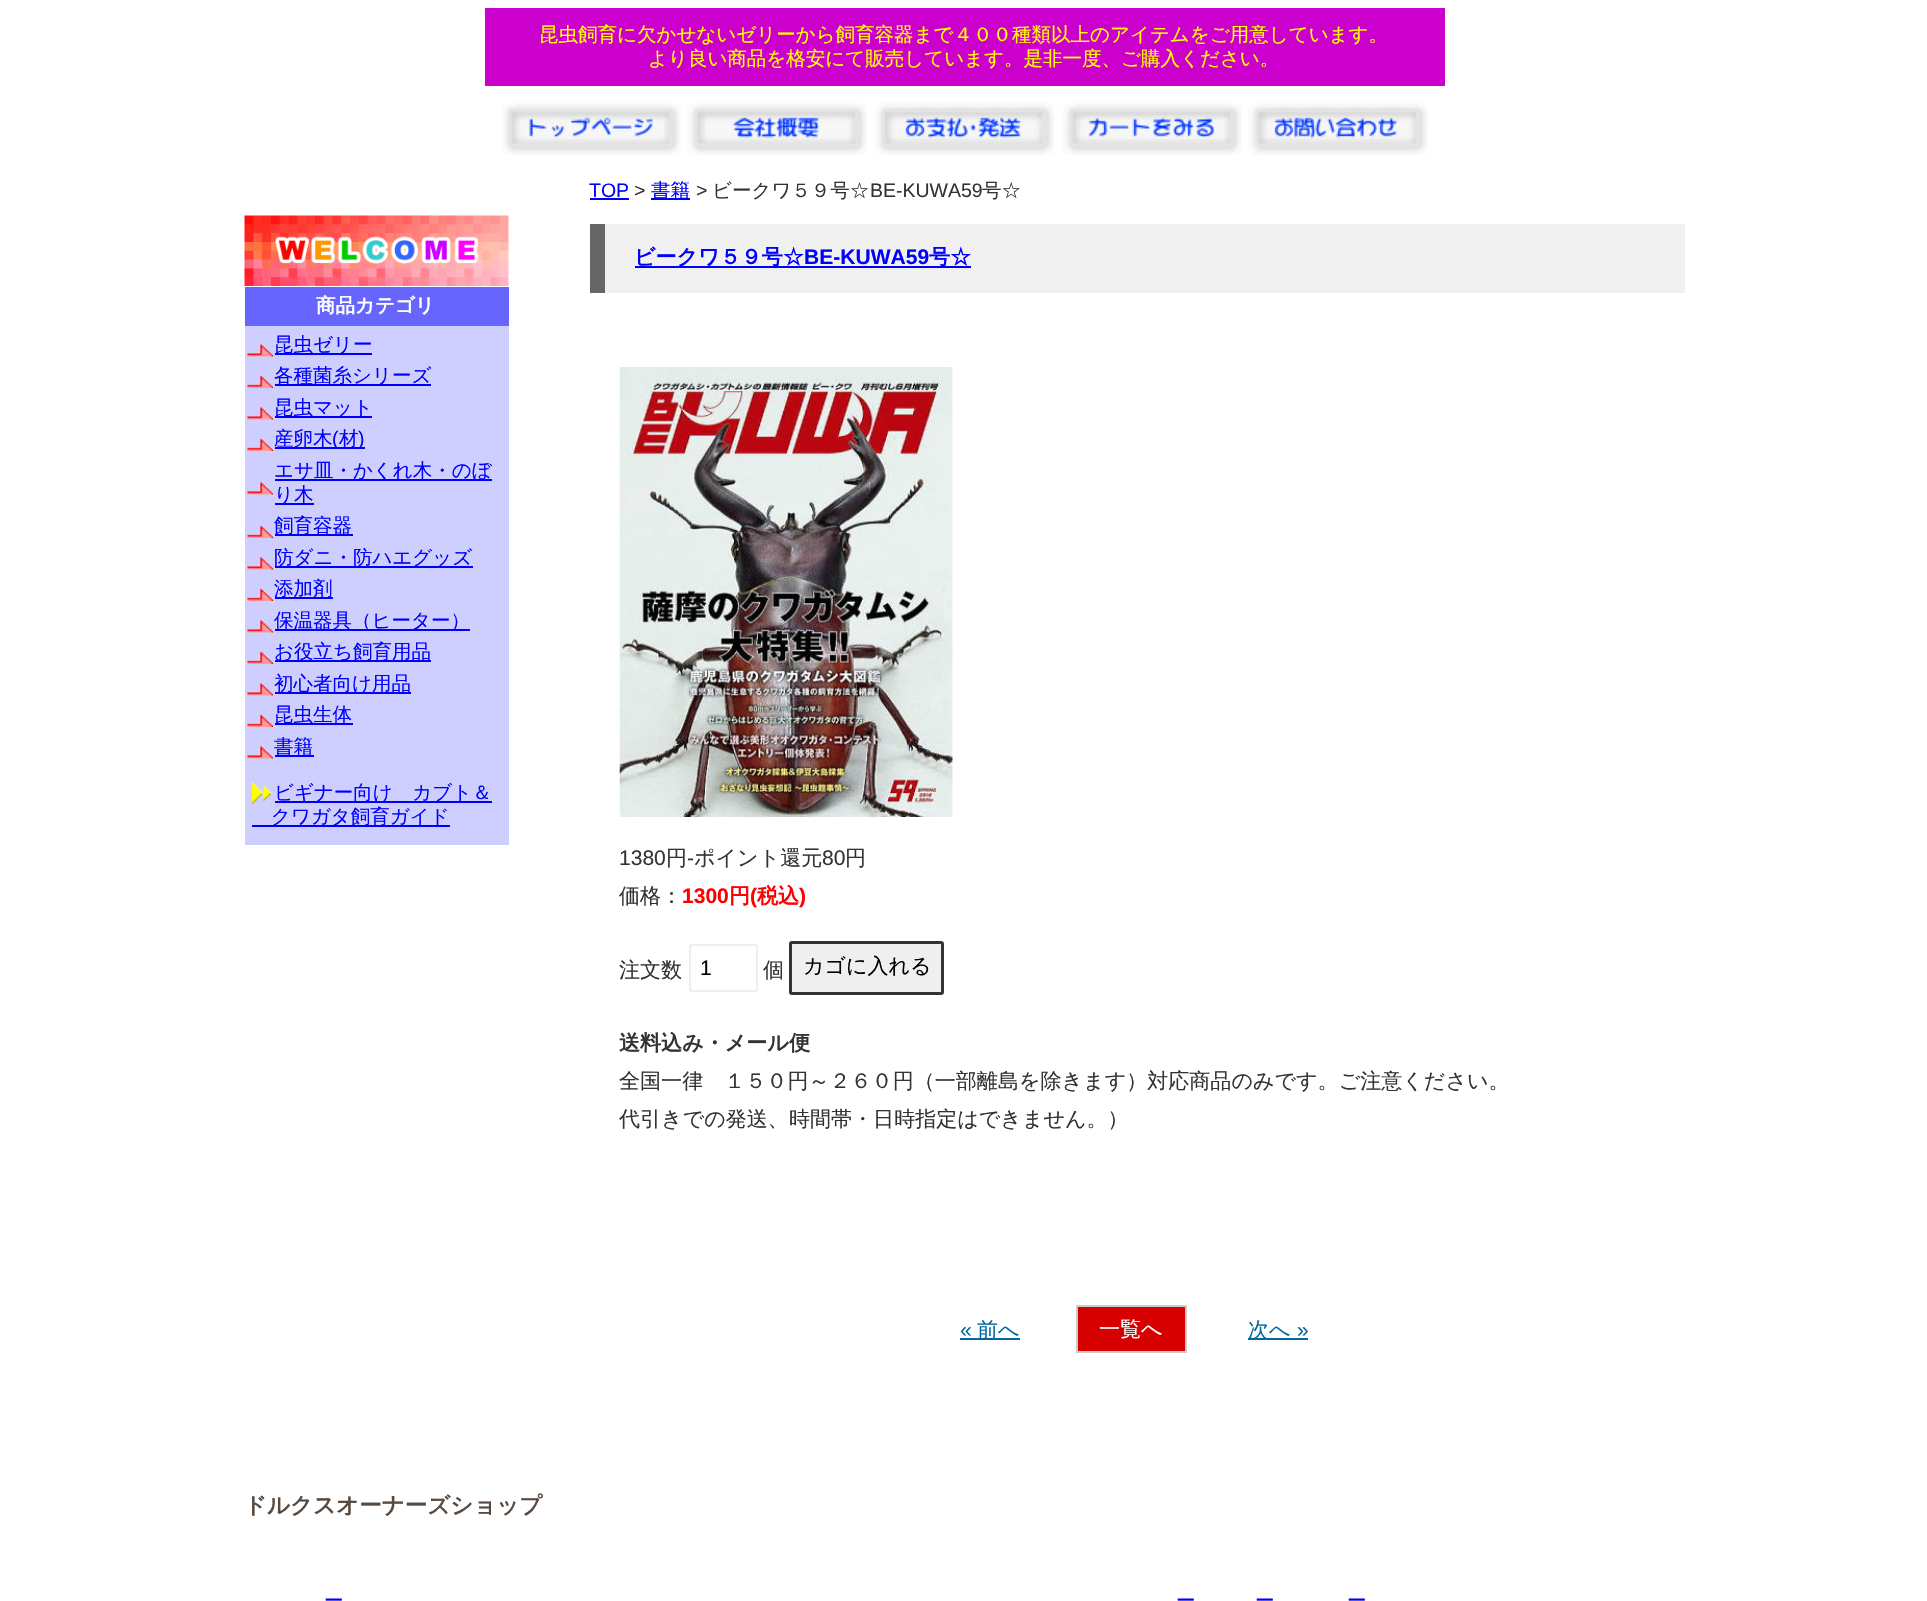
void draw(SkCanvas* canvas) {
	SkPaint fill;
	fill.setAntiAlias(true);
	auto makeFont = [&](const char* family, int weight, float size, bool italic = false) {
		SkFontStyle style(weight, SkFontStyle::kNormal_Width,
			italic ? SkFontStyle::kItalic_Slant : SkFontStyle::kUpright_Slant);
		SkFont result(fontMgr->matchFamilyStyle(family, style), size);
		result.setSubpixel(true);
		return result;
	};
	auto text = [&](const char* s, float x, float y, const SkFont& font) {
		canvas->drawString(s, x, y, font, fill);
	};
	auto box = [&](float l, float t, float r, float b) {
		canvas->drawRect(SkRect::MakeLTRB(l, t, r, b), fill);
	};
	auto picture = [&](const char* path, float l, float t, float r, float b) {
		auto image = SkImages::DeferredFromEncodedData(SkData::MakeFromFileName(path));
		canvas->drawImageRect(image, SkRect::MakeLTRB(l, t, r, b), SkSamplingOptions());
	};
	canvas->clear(0xFFFFFFFF);
	fill.setColor(0xFFCC00CC);
	box(485, 8, 1445, 86);
	picture("image0.png", 501, 103, 681, 155);
	picture("image1.png", 687, 103, 867, 155);
	picture("image2.png", 875, 102, 1054, 155);
	picture("image3.png", 1062, 103, 1242, 155);
	picture("image4.png", 1248, 103, 1428, 155);
	picture("image5.png", 244, 215, 509, 286);
	fill.setColor(0xFF6666FF);
	box(245, 287, 509, 326);
	fill.setColor(0xFFCECFFF);
	box(245, 326, 509, 845);
	picture("image6.png", 247, 344, 273, 357);
	fill.setColor(0xFF0000FF);
	box(275, 353, 372, 355);
	picture("image7.png", 247, 375, 273, 388);
	box(275, 384, 431, 386);
	picture("image6.png", 247, 407, 273, 420);
	box(275, 416, 372, 418);
	picture("image7.png", 247, 438, 273, 451);
	box(275, 447, 365, 449);
	picture("image6.png", 247, 482, 273, 495);
	box(275, 479, 492, 481);
	box(275, 503, 314, 505);
	picture("image7.png", 247, 525, 273, 538);
	box(275, 534, 353, 536);
	picture("image6.png", 247, 557, 273, 570);
	box(275, 566, 473, 568);
	picture("image7.png", 247, 588, 273, 601);
	box(275, 597, 333, 599);
	picture("image6.png", 247, 620, 273, 633);
	box(275, 629, 470, 631);
	picture("image7.png", 247, 651, 273, 664);
	box(275, 660, 431, 662);
	picture("image6.png", 247, 683, 273, 696);
	box(275, 692, 411, 694);
	picture("image7.png", 247, 714, 273, 727);
	box(275, 723, 353, 725);
	picture("image6.png", 247, 746, 273, 759);
	box(275, 755, 314, 757);
	picture("image8.png", 252, 782, 272, 804);
	box(275, 801, 492, 803);
	box(252, 825, 450, 827);
	box(590, 198, 629, 200);
	box(651, 198, 690, 200);
	fill.setColor(0xFFF0F0F0);
	box(605, 224, 1685, 293);
	fill.setColor(0xFF666666);
	box(590, 224, 605, 293);
	fill.setColor(0xFF0000FF);
	box(635, 266, 971, 268);
	picture("image9.png", 619, 367, 953, 817);
	fill.setStyle(SkPaint::kStroke_Style);
	fill.setStrokeWidth(2);
	fill.setColor(0xFFEEEEEE);
	canvas->drawRoundRect(SkRect::MakeLTRB(690, 945, 757, 991), 2, 2, fill);
	fill.setStyle(SkPaint::kFill_Style);
	fill.setColor(0xFFEFEFEF);
	canvas->drawRoundRect(SkRect::MakeLTRB(790.5f, 942.5f, 942.5f, 993.5f), 1.5f, 1.5f, fill);
	fill.setStyle(SkPaint::kStroke_Style);
	fill.setStrokeWidth(3);
	fill.setColor(0xFF333333);
	canvas->drawRoundRect(SkRect::MakeLTRB(790.5f, 942.5f, 942.5f, 993.5f), 1.5f, 1.5f, fill);
	fill.setStyle(SkPaint::kFill_Style);
	fill.setColor(0xFF02689D);
	box(960, 1338, 1020, 1340);
	fill.setColor(0xFFD60000);
	canvas->drawRect(SkRect::MakeLTRB(1077, 1306, 1186, 1352), fill);
	fill.setStyle(SkPaint::kStroke_Style);
	fill.setStrokeWidth(2);
	fill.setColor(0xFFCCCCCC);
	canvas->drawRect(SkRect::MakeLTRB(1077, 1306, 1186, 1352), fill);
	fill.setStyle(SkPaint::kFill_Style);
	fill.setColor(0xFF02689D);
	box(1248, 1338, 1308, 1340);
	auto font1 = makeFont("WenQuanYi Zen Hei", 500, 19.5f);
	fill.setColor(0xFFFFFF00);
	text("昆虫飼育に欠かせないゼリーから飼育容器まで４００種類以上のアイテムをご用意しています。", 539, 41, font1);
	text("より良い商品を格安にて販売しています。是非一度、ご購入ください。", 648, 65, font1);
	auto font2 = makeFont("WenQuanYi Zen Hei", 700, 19.5f);
	fill.setColor(0xFFFFFFFF);
	text("商品カテゴリ", 316, 312, font2);
	fill.setColor(0xFF0000FF);
	text("昆虫ゼリー", 274, 351, font1);
	text("各種菌糸シリーズ", 274, 382, font1);
	text("昆虫マット", 274, 414, font1);
	text("産卵木", 274, 445, font1);
	auto font3 = makeFont("Liberation Sans", 400, 19.5f);
	text("(", 332, 445, font3);
	text("材", 339, 445, font1);
	text(")", 358, 445, font3);
	text("エサ皿・かくれ木・のぼ", 274, 477, font1);
	text("り木", 274, 501, font1);
	text("飼育容器", 274, 532, font1);
	text("防ダニ・防ハエグッズ", 274, 564, font1);
	text("添加剤", 274, 595, font1);
	text("保温器具（ヒーター）", 274, 627, font1);
	text("お役立ち飼育用品", 274, 658, font1);
	text("初心者向け用品", 274, 690, font1);
	text("昆虫生体", 274, 721, font1);
	text("書籍", 274, 753, font1);
	text("ビギナー向け　カブト＆", 274, 799, font1);
	text("クワガタ飼育ガイド", 271, 823, font1);
	text("TOP", 589, 197, font3);
	fill.setColor(0xFF333333);
	text(">", 634, 197, font3);
	fill.setColor(0xFF0000FF);
	text("書籍", 651, 197, font1);
	fill.setColor(0xFF333333);
	text(">", 696, 197, font3);
	text("ビークワ５９号☆", 712, 197, font1);
	text("BE-KUWA59", 870, 197, font3);
	text("号☆", 982, 197, font1);
	auto font4 = makeFont("WenQuanYi Zen Hei", 700, 21.05f);
	fill.setColor(0xFF0000FF);
	text("ビークワ５９号☆", 634, 264, font4);
	auto font5 = makeFont("Liberation Sans", 700, 21.05f);
	text("BE-KUWA59", 804, 264, font5);
	text("号☆", 929, 264, font4);
	auto font6 = makeFont("Liberation Sans", 400, 21.05f);
	fill.setColor(0xFF333333);
	text("1380", 619, 865, font6);
	auto font7 = makeFont("WenQuanYi Zen Hei", 500, 21.05f);
	text("円", 666, 865, font7);
	text("-", 687, 865, font6);
	text("ポイント還元", 694, 865, font7);
	text("80", 822, 865, font6);
	text("円", 845, 865, font7);
	text("価格：", 619, 903, font7);
	fill.setColor(0xFFFF0000);
	text("1300", 682, 903, font5);
	text("円", 729, 903, font4);
	text("(", 750, 903, font5);
	text("税込", 757, 903, font4);
	text(")", 799, 903, font5);
	fill.setColor(0xFF333333);
	text("注文数", 619, 977, font7);
	auto font8 = makeFont("Liberation Sans", 400, 21);
	fill.setColor(0xFF000000);
	text("1", 700, 975, font8);
	fill.setColor(0xFF333333);
	text("個", 763, 977, font7);
	auto font9 = makeFont("WenQuanYi Zen Hei", 500, 21);
	fill.setColor(0xFF000000);
	text("カゴに入れる", 803, 973, font9);
	fill.setColor(0xFF333333);
	text("送料込み・メール便", 619, 1050, font4);
	text("全国一律　１５０円～２６０円（一部離島を除きます）対応商品のみです。ご注意ください。", 619, 1088, font7);
	text("代引きでの発送、時間帯・日時指定はできません。）", 619, 1126, font7);
	fill.setColor(0xFF02689D);
	text("«", 960, 1337, font6);
	text("前へ", 977, 1337, font7);
	fill.setColor(0xFFFFFFFF);
	text("一覧へ", 1099, 1336, font7);
	fill.setColor(0xFF02689D);
	text("次へ", 1248, 1337, font7);
	text("»", 1297, 1337, font6);
	auto font10 = makeFont("WenQuanYi Zen Hei", 700, 22.5f);
	fill.setColor(0xFF59493F);
	text("ドルクスオーナーズショップ", 244, 1513, font10);
	fill.setColor(0xFF0000FF);
	text("ー", 324, 1607, font1);
	text("ー", 1176, 1607, font1);
	text("ー", 1255, 1607, font1);
	text("ー", 1347, 1607, font1);
}
